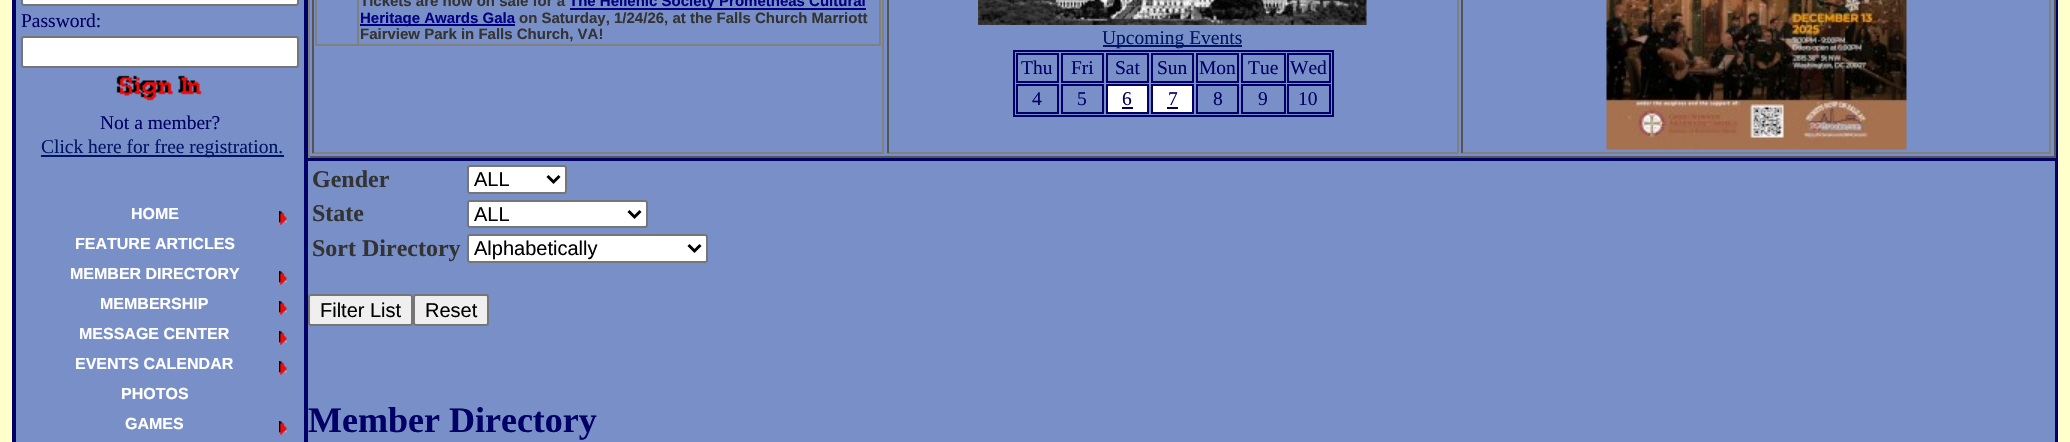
void draw(SkCanvas* canvas) {
	SkPaint fill;
	fill.setAntiAlias(true);
	auto makeFont = [&](const char* family, int weight, float size, bool italic = false) {
		SkFontStyle style(weight, SkFontStyle::kNormal_Width,
			italic ? SkFontStyle::kItalic_Slant : SkFontStyle::kUpright_Slant);
		SkFont result(fontMgr->matchFamilyStyle(family, style), size);
		result.setSubpixel(true);
		return result;
	};
	auto text = [&](const char* s, float x, float y, const SkFont& font) {
		canvas->drawString(s, x, y, font, fill);
	};
	auto box = [&](float l, float t, float r, float b) {
		canvas->drawRect(SkRect::MakeLTRB(l, t, r, b), fill);
	};
	auto picture = [&](const char* path, float l, float t, float r, float b) {
		auto image = SkImages::DeferredFromEncodedData(SkData::MakeFromFileName(path));
		canvas->drawImageRect(image, SkRect::MakeLTRB(l, t, r, b), SkSamplingOptions());
	};
	canvas->clear(0xFFFFFFCC);
	fill.setStyle(SkPaint::kStroke_Style);
	fill.setStrokeWidth(2);
	fill.setColor(0xFF000066);
	canvas->drawRect(SkRect::MakeLTRB(13, -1, 2057, 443), fill);
	fill.setStyle(SkPaint::kFill_Style);
	fill.setColor(0xFF798FC8);
	canvas->drawRect(SkRect::MakeLTRB(15, -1, 305, 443), fill);
	fill.setStyle(SkPaint::kStroke_Style);
	fill.setColor(0xFF000066);
	canvas->drawRect(SkRect::MakeLTRB(15, -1, 305, 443), fill);
	fill.setStyle(SkPaint::kFill_Style);
	fill.setColor(0xFFFFFFFF);
	canvas->drawRoundRect(SkRect::MakeLTRB(22, -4, 298, 5), 2, 2, fill);
	fill.setStyle(SkPaint::kStroke_Style);
	fill.setColor(0xFF767676);
	canvas->drawRoundRect(SkRect::MakeLTRB(22, -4, 298, 5), 2, 2, fill);
	fill.setStyle(SkPaint::kFill_Style);
	fill.setColor(0xFFFFFFFF);
	canvas->drawRoundRect(SkRect::MakeLTRB(22, 37, 298, 67), 2, 2, fill);
	fill.setStyle(SkPaint::kStroke_Style);
	fill.setColor(0xFF767676);
	canvas->drawRoundRect(SkRect::MakeLTRB(22, 37, 298, 67), 2, 2, fill);
	picture("image0.png", 116, 75, 202, 101);
	fill.setStyle(SkPaint::kFill_Style);
	fill.setColor(0xFF001664);
	box(41, 155, 284, 157);
	fill.setColor(0xFF798FC8);
	box(310, 0, 2054, 156);
	fill.setStyle(SkPaint::kStroke_Style);
	fill.setColor(0xFF000066);
	canvas->drawRect(SkRect::MakeLTRB(307, -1, 2056, 158), fill);
	fill.setStyle(SkPaint::kFill_Style);
	fill.setColor(0xFF555555);
	box(2054, 0, 2056, 158);
	box(308, 156, 2055, 158);
	fill.setColor(0xFF808080);
	box(308, 0, 310, 158);
	box(882, 0, 884, 153);
	box(312, 152, 884, 154);
	fill.setColor(0xFF555555);
	box(312, 0, 314, 153);
	fill.setColor(0xFF808080);
	box(879, 0, 881, 45);
	box(357, 44, 881, 46);
	box(357, 0, 359, 45);
	box(315, 44, 359, 46);
	box(315, 0, 317, 45);
	fill.setColor(0xFF000080);
	box(570, 8, 866, 10);
	box(360, 24, 515, 26);
	fill.setColor(0xFF808080);
	box(1457, 0, 1459, 153);
	box(887, 152, 1458, 154);
	fill.setColor(0xFF555555);
	box(887, 0, 889, 153);
	picture("image1.png", 978, 0, 1367, 25);
	fill.setColor(0xFF001664);
	box(1103, 45, 1242, 47);
	fill.setStyle(SkPaint::kStroke_Style);
	fill.setColor(0xFF000066);
	canvas->drawRect(SkRect::MakeLTRB(1014, 51, 1333, 116), fill);
	canvas->drawRect(SkRect::MakeLTRB(1017, 54, 1058, 82), fill);
	canvas->drawRect(SkRect::MakeLTRB(1062, 54, 1103, 82), fill);
	canvas->drawRect(SkRect::MakeLTRB(1107, 54, 1148, 82), fill);
	canvas->drawRect(SkRect::MakeLTRB(1152, 54, 1193, 82), fill);
	canvas->drawRect(SkRect::MakeLTRB(1197, 54, 1238, 82), fill);
	canvas->drawRect(SkRect::MakeLTRB(1242, 54, 1285, 82), fill);
	canvas->drawRect(SkRect::MakeLTRB(1288, 54, 1330, 82), fill);
	canvas->drawRect(SkRect::MakeLTRB(1017, 85, 1058, 113), fill);
	canvas->drawRect(SkRect::MakeLTRB(1062, 85, 1103, 113), fill);
	fill.setStyle(SkPaint::kFill_Style);
	fill.setColor(0xFFFFFFFF);
	canvas->drawRect(SkRect::MakeLTRB(1107, 85, 1148, 113), fill);
	fill.setStyle(SkPaint::kStroke_Style);
	fill.setColor(0xFF000066);
	canvas->drawRect(SkRect::MakeLTRB(1107, 85, 1148, 113), fill);
	fill.setStyle(SkPaint::kFill_Style);
	box(1122, 107, 1133, 109);
	fill.setColor(0xFFFFFFFF);
	canvas->drawRect(SkRect::MakeLTRB(1152, 85, 1193, 113), fill);
	fill.setStyle(SkPaint::kStroke_Style);
	fill.setColor(0xFF000066);
	canvas->drawRect(SkRect::MakeLTRB(1152, 85, 1193, 113), fill);
	fill.setStyle(SkPaint::kFill_Style);
	box(1167, 107, 1178, 109);
	fill.setStyle(SkPaint::kStroke_Style);
	canvas->drawRect(SkRect::MakeLTRB(1197, 85, 1238, 113), fill);
	canvas->drawRect(SkRect::MakeLTRB(1242, 85, 1285, 113), fill);
	canvas->drawRect(SkRect::MakeLTRB(1288, 85, 1330, 113), fill);
	fill.setStyle(SkPaint::kFill_Style);
	fill.setColor(0xFF808080);
	box(2049, 0, 2051, 153);
	box(1461, 152, 2051, 154);
	fill.setColor(0xFF555555);
	box(1461, 0, 1463, 153);
	picture("image2.png", 1606, 0, 1907, 150);
	fill.setColor(0xFF798FC8);
	canvas->drawRect(SkRect::MakeLTRB(307, 160, 2056, 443), fill);
	fill.setStyle(SkPaint::kStroke_Style);
	fill.setColor(0xFF000066);
	canvas->drawRect(SkRect::MakeLTRB(307, 160, 2056, 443), fill);
	fill.setStyle(SkPaint::kFill_Style);
	fill.setColor(0xFFFFFFFF);
	canvas->drawRoundRect(SkRect::MakeLTRB(468, 166, 566, 193), 2, 2, fill);
	fill.setStyle(SkPaint::kStroke_Style);
	fill.setColor(0xFF767676);
	canvas->drawRoundRect(SkRect::MakeLTRB(468, 166, 566, 193), 2, 2, fill);
	fill.setStrokeWidth(3);
	fill.setColor(0xFF000000);
	canvas->drawPath(SkPathBuilder().moveTo(547.5f, 176).lineTo(553.5f, 182).lineTo(559.5f, 176).detach(), fill);
	fill.setStyle(SkPaint::kFill_Style);
	fill.setColor(0xFFFFFFFF);
	canvas->drawRoundRect(SkRect::MakeLTRB(468, 201, 647, 227), 2, 2, fill);
	fill.setStyle(SkPaint::kStroke_Style);
	fill.setStrokeWidth(2);
	fill.setColor(0xFF767676);
	canvas->drawRoundRect(SkRect::MakeLTRB(468, 201, 647, 227), 2, 2, fill);
	fill.setStrokeWidth(3);
	fill.setColor(0xFF000000);
	canvas->drawPath(SkPathBuilder().moveTo(628.5f, 211).lineTo(634.5f, 217).lineTo(640.5f, 211).detach(), fill);
	fill.setStyle(SkPaint::kFill_Style);
	fill.setColor(0xFFFFFFFF);
	canvas->drawRoundRect(SkRect::MakeLTRB(468, 235, 707, 262), 2, 2, fill);
	fill.setStyle(SkPaint::kStroke_Style);
	fill.setStrokeWidth(2);
	fill.setColor(0xFF767676);
	canvas->drawRoundRect(SkRect::MakeLTRB(468, 235, 707, 262), 2, 2, fill);
	fill.setStrokeWidth(3);
	fill.setColor(0xFF000000);
	canvas->drawPath(SkPathBuilder().moveTo(688.5f, 245).lineTo(694.5f, 251).lineTo(700.5f, 245).detach(), fill);
	fill.setStyle(SkPaint::kFill_Style);
	fill.setColor(0xFFEFEFEF);
	canvas->drawRoundRect(SkRect::MakeLTRB(309, 295, 412, 325), 2, 2, fill);
	fill.setStyle(SkPaint::kStroke_Style);
	fill.setStrokeWidth(2);
	fill.setColor(0xFF767676);
	canvas->drawRoundRect(SkRect::MakeLTRB(309, 295, 412, 325), 2, 2, fill);
	fill.setStyle(SkPaint::kFill_Style);
	fill.setColor(0xFFEFEFEF);
	canvas->drawRoundRect(SkRect::MakeLTRB(414, 295, 488, 325), 2, 2, fill);
	fill.setStyle(SkPaint::kStroke_Style);
	fill.setColor(0xFF767676);
	canvas->drawRoundRect(SkRect::MakeLTRB(414, 295, 488, 325), 2, 2, fill);
	picture("image3.png", 279, 211, 287, 226);
	picture("image3.png", 279, 271, 287, 286);
	picture("image3.png", 279, 301, 287, 316);
	picture("image3.png", 279, 331, 287, 346);
	picture("image3.png", 279, 361, 287, 376);
	picture("image3.png", 279, 421, 287, 436);
	auto font1 = makeFont("Liberation Serif", 400, 19.5f);
	fill.setStyle(SkPaint::kFill_Style);
	fill.setColor(0xFF000066);
	text("Password:", 21, 27, font1);
	text("Not a member?", 100, 129, font1);
	fill.setColor(0xFF001664);
	text("Click here for free registration.", 41, 153, font1);
	auto font2 = makeFont("Liberation Sans", 700, 15);
	fill.setColor(0xFF333333);
	text("Tickets are now on sale for a", 360, 6, font2);
	fill.setColor(0xFF000080);
	text("The Hellenic Society Prometheas Cultural", 569, 6, font2);
	text("Heritage Awards Gala", 360, 23, font2);
	fill.setColor(0xFF333333);
	text("on Saturday, 1/24/26, at the Falls Church Marriott", 519, 23, font2);
	text("Fairview Park in Falls Church, VA!", 360, 39, font2);
	fill.setColor(0xFF001664);
	text("Upcoming Events", 1102, 44, font1);
	fill.setColor(0xFF000066);
	text("Thu", 1021, 74, font1);
	text("Fri", 1071, 74, font1);
	text("Sat", 1115, 74, font1);
	text("Sun", 1157, 74, font1);
	text("Mon", 1199, 74, font1);
	text("Tue", 1248, 74, font1);
	text("Wed", 1290, 74, font1);
	text("4", 1032, 105, font1);
	text("5", 1077, 105, font1);
	text("6", 1122, 105, font1);
	text("7", 1168, 105, font1);
	text("8", 1213, 105, font1);
	text("9", 1258, 105, font1);
	text("10", 1298, 105, font1);
	auto font3 = makeFont("Liberation Serif", 700, 24);
	fill.setColor(0xFF333333);
	text("Gender", 312, 187, font3);
	auto font4 = makeFont("Liberation Sans", 400, 20);
	fill.setColor(0xFF000000);
	text("ALL", 474, 186, font4);
	fill.setColor(0xFF333333);
	text("State", 312, 221, font3);
	fill.setColor(0xFF000000);
	text("ALL", 474, 221, font4);
	fill.setColor(0xFF333333);
	text("Sort Directory", 312, 256, font3);
	fill.setColor(0xFF000000);
	text("Alphabetically", 474, 255, font4);
	text("Filter List", 320, 317, font4);
	text("Reset", 425, 317, font4);
	auto font5 = makeFont("Liberation Serif", 700, 36);
	fill.setColor(0xFF000066);
	text("Member Directory", 308, 432, font5);
	auto font6 = makeFont("Liberation Sans", 700, 16);
	fill.setColor(0xFFFFFFFF);
	text("HOME", 131, 219, font6);
	text("FEATURE ARTICLES", 75, 249, font6);
	text("MEMBER DIRECTORY", 70, 279, font6);
	text("MEMBERSHIP", 100, 309, font6);
	text("MESSAGE CENTER", 79, 339, font6);
	text("EVENTS CALENDAR", 75, 369, font6);
	text("PHOTOS", 121, 399, font6);
	text("GAMES", 125, 429, font6);
}
